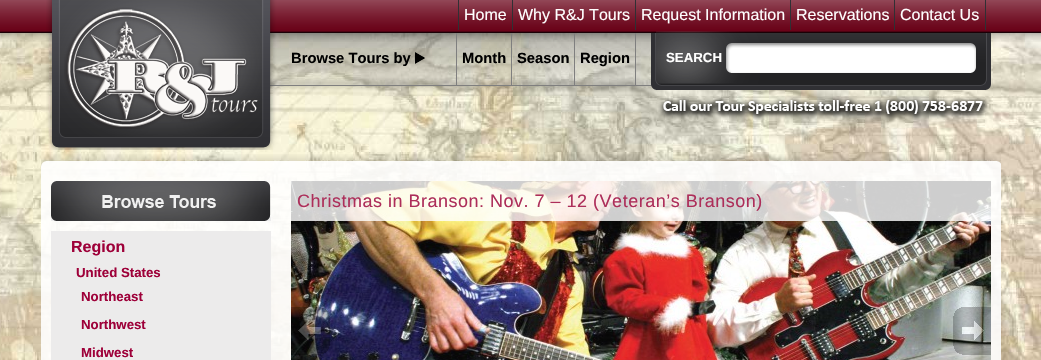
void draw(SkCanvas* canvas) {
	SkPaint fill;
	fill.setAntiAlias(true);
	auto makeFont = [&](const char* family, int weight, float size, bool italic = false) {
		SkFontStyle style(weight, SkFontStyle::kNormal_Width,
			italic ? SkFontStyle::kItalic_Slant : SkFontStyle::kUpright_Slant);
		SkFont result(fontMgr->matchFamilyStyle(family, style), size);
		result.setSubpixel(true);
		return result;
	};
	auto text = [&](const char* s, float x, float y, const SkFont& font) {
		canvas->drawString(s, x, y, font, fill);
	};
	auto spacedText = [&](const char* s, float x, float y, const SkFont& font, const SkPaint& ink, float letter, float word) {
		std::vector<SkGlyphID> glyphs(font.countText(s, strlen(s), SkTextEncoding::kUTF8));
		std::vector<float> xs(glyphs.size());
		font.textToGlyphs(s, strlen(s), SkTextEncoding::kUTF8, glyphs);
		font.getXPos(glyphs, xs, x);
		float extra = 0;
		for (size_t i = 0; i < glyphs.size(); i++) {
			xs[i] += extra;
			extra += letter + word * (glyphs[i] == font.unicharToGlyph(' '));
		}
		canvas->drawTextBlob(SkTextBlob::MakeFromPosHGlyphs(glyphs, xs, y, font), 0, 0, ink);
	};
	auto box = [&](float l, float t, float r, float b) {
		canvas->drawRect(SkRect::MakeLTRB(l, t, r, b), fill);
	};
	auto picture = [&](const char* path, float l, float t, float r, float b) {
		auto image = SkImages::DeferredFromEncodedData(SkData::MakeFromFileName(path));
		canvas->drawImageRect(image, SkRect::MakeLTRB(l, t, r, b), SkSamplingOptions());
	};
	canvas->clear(0xFFFFFFFF);
	picture("image10.png", 0, 33, 1041, 360);
	picture("image0.png", 0, 0, 1041, 42);
	picture("image1.png", 46, 0, 991, 150);
	picture("image2.png", 64, 7, 258, 129);
	fill.setColor(0xFF303034);
	box(458, 0, 459, 30);
	box(512, 0, 513, 30);
	box(635, 0, 636, 30);
	box(790, 0, 791, 30);
	box(894, 0, 895, 30);
	box(985, 0, 986, 30);
	picture("image3.png", 414, 52, 425, 64);
	fill.setColor(0xFF7F7F7F);
	box(456, 33, 457, 85);
	box(511, 33, 512, 85);
	box(574, 33, 575, 85);
	box(635, 33, 636, 85);
	picture("image4.png", 658, 96, 990, 122);
	picture("image5.png", 41, 154, 1001, 171);
	fill.setColor(0xE3FFFFFF);
	box(41, 171, 1001, 360);
	picture("image6.png", 291, 181, 991, 360);
	fill.setColor(0xCCFFFFFF);
	box(291, 181, 991, 221);
	picture("image7.png", 291, 307, 330, 355);
	picture("image8.png", 953, 307, 991, 355);
	picture("image9.png", 51, 181, 271, 221);
	fill.setColor(0xFFECEBEB);
	box(51, 231, 271, 360);
	auto font1 = makeFont("Liberation Sans", 400, 16);
	fill.setColor(0xFFFFFFFF);
	text("Home", 464, 20, font1);
	text("Why R&J Tours", 518, 20, font1);
	text("Request Information", 641, 20, font1);
	text("Reservations", 796, 20, font1);
	text("Contact Us", 900, 20, font1);
	auto font2 = makeFont("Liberation Sans", 700, 14.75f);
	fill.setColor(0xFF000000);
	text("Browse Tours by", 291, 63, font2);
	text("Month", 462, 63, font2);
	text("Season", 517, 63, font2);
	text("Region", 580, 63, font2);
	auto font3 = makeFont("Liberation Sans", 700, 13.25f);
	fill.setColor(0xFFFFFFFF);
	text("SEARCH", 666, 62, font3);
	auto font4 = makeFont("Liberation Sans", 400, 18);
	fill.setColor(0xFFAD2E5A);
	spacedText("Christmas in Branson: Nov. 7 – 12 (Veteran’s Branson)", 297, 207, font4, fill, 0.5f, 0);
	auto font5 = makeFont("Liberation Sans", 700, 16);
	fill.setColor(0xFF9E0039);
	text("Region", 71, 252, font5);
	text("United States", 76, 277, font3);
	text("Northeast", 81, 301, font3);
	text("Northwest", 81, 329, font3);
	text("Midwest", 81, 357, font3);
}
